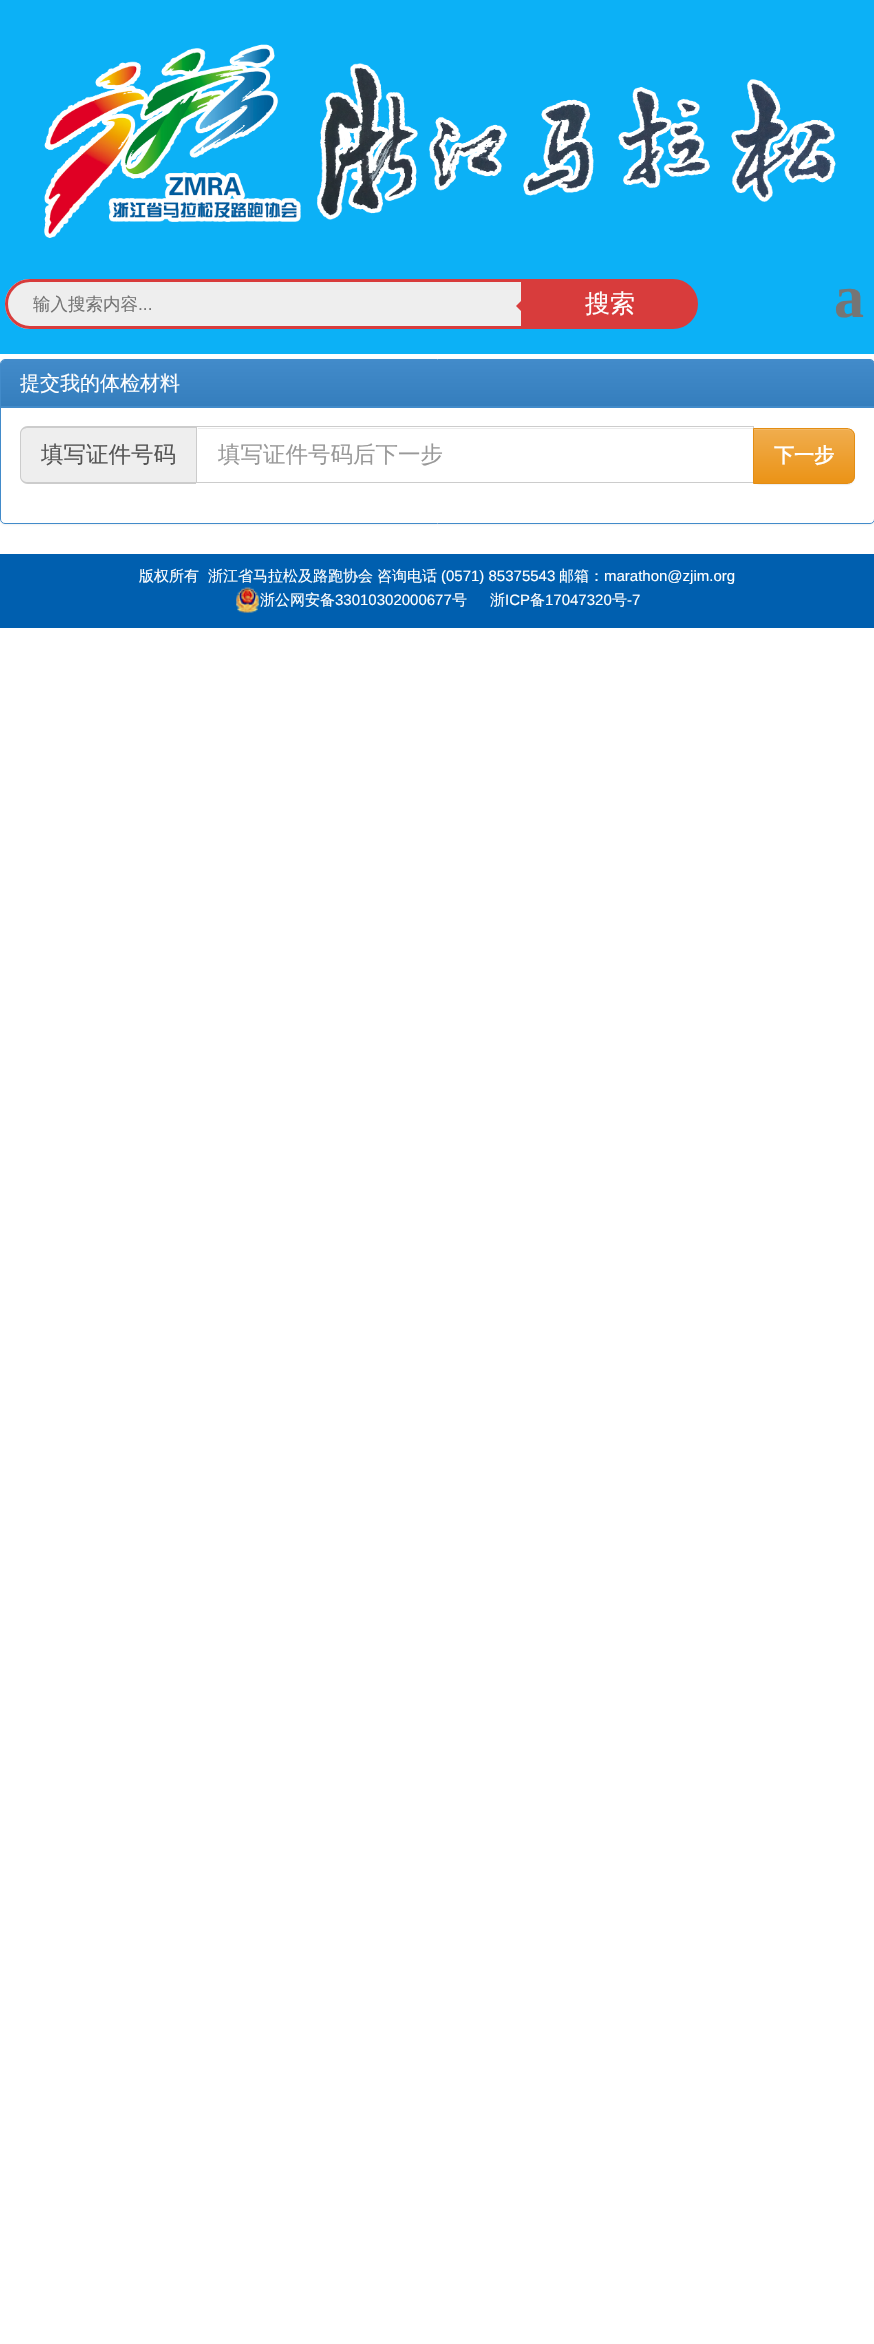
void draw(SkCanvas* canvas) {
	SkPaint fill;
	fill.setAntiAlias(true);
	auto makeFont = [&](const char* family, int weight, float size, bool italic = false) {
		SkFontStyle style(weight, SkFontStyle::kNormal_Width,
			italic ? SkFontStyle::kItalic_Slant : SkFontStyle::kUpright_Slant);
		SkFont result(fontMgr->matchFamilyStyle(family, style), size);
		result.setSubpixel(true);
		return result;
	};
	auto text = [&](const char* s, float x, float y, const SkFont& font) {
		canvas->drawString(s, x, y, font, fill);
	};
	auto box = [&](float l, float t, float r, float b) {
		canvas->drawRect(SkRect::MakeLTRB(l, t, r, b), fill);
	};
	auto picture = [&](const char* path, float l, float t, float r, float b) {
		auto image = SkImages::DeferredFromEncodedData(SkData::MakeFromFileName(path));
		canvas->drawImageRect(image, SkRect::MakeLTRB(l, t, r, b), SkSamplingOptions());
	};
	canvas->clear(0xFFFFFFFF);
	fill.setColor(0xFF0CB1F6);
	box(0, 0, 874, 354);
	picture("image0.png", 44, 44, 836, 238);
	fill.setColor(0xFFEEEEEE);
	canvas->drawPath(SkPathBuilder().moveTo(30, 279).lineTo(524, 279).lineTo(524, 329).lineTo(30, 329).cubicTo(16, 329, 5, 318, 5, 304).cubicTo(5, 290, 16, 279, 30, 279).close().detach(), fill);
	fill.setColor(0xFFDCDCDC);
	canvas->drawPath(SkPathBuilder().moveTo(30, 282).lineTo(521, 282).lineTo(521, 281).lineTo(30, 281).cubicTo(18, 281, 8, 292, 8, 304).cubicTo(8, 293, 18, 282, 30, 282).close().detach(), fill);
	fill.setStyle(SkPaint::kStroke_Style);
	fill.setStrokeWidth(3);
	fill.setColor(0xFFD83C3C);
	canvas->drawPath(SkPathBuilder().moveTo(30, 280.5f).lineTo(522.5f, 280.5f).lineTo(522.5f, 327.5f).lineTo(30, 327.5f).cubicTo(17, 327.5f, 6.5f, 317, 6.5f, 304).cubicTo(6.5f, 291, 17, 280.5f, 30, 280.5f).close().detach(), fill);
	fill.setStyle(SkPaint::kFill_Style);
	canvas->drawPath(SkPathBuilder().moveTo(525.5f, 280.5f).lineTo(673, 280.5f).cubicTo(686, 280.5f, 696.5f, 291, 696.5f, 304).cubicTo(696.5f, 317, 686, 327.5f, 673, 327.5f).lineTo(525.5f, 327.5f).close().detach(), fill);
	fill.setStyle(SkPaint::kStroke_Style);
	canvas->drawPath(SkPathBuilder().moveTo(525.5f, 280.5f).lineTo(673, 280.5f).cubicTo(686, 280.5f, 696.5f, 291, 696.5f, 304).cubicTo(696.5f, 317, 686, 327.5f, 673, 327.5f).lineTo(525.5f, 327.5f).close().detach(), fill);
	fill.setStyle(SkPaint::kFill_Style);
	canvas->drawPath(SkPathBuilder().moveTo(526, 296).lineTo(526, 316).lineTo(516, 306).close().detach(), fill);
	fill.setColor(0x0D000000);
	fill.setMaskFilter(SkMaskFilter::MakeBlur(kNormal_SkBlurStyle, 1));
	canvas->drawRoundRect(SkRect::MakeLTRB(0, 360, 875, 525), 5, 5, fill);
	fill.setMaskFilter(nullptr);
	fill.setColor(0xFFFFFFFF);
	canvas->drawRoundRect(SkRect::MakeLTRB(0.5f, 359.5f, 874.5f, 523.5f), 4.5f, 4.5f, fill);
	fill.setStyle(SkPaint::kStroke_Style);
	fill.setStrokeWidth(1);
	fill.setColor(0xFF428BCA);
	canvas->drawRoundRect(SkRect::MakeLTRB(0.5f, 359.5f, 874.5f, 523.5f), 4.5f, 4.5f, fill);
	fill.setStyle(SkPaint::kFill_Style);
	canvas->drawPath(SkPathBuilder().moveTo(5, 360).lineTo(870, 360).cubicTo(872, 360, 874, 362, 874, 364).lineTo(874, 408).lineTo(1, 408).lineTo(1, 364).cubicTo(1, 362, 3, 360, 5, 360).close().detach(), fill);
	{
		const SkColor colors[] = {0xFF428BCA, 0xFF357EBD};
		const float stops[] = {0, 1};
		const SkPoint ends[] = {{438, 360}, {438, 406}};
		fill.setShader(SkGradientShader::MakeLinear(ends, colors, stops, 2, SkTileMode::kClamp));
		fill.setAlpha(255);
	}
	canvas->drawPath(SkPathBuilder().moveTo(5, 360).lineTo(870, 360).cubicTo(872, 360, 874, 362, 874, 364).lineTo(874, 406).lineTo(1, 406).lineTo(1, 364).cubicTo(1, 362, 3, 360, 5, 360).close().detach(), fill);
	fill.setShader(nullptr);
	fill.setColor(0xFFEEEEEE);
	canvas->drawPath(SkPathBuilder().moveTo(28, 426).lineTo(196, 426).lineTo(196, 484).lineTo(28, 484).cubicTo(23.5f, 484, 20, 480.5f, 20, 476).lineTo(20, 434).cubicTo(20, 429.5f, 23.5f, 426, 28, 426).close().detach(), fill);
	fill.setColor(0xFFCCCCCC);
	canvas->drawPath(SkPathBuilder(SkPathFillType::kEvenOdd).moveTo(28, 426).lineTo(196, 426).lineTo(196, 484).lineTo(28, 484).cubicTo(23, 484, 20, 480, 20, 476).lineTo(20, 434).cubicTo(20, 430, 23, 426, 28, 426).close().moveTo(28, 428).lineTo(196, 428).lineTo(196, 482).lineTo(28, 482).cubicTo(24, 482, 21, 480, 21, 476).lineTo(21, 434).cubicTo(21, 430, 24, 428, 28, 428).close().detach(), fill);
	fill.setColor(0xFFECECEC);
	box(198, 428, 753, 429);
	fill.setStyle(SkPaint::kStroke_Style);
	fill.setColor(0xFFCCCCCC);
	canvas->drawRect(SkRect::MakeLTRB(196.5f, 426.5f, 753.5f, 482.5f), fill);
	fill.setStyle(SkPaint::kFill_Style);
	fill.setColor(0x12000000);
	fill.setMaskFilter(SkMaskFilter::MakeBlur(kNormal_SkBlurStyle, 0.5f));
	canvas->drawRoundRect(SkRect::MakeLTRB(753, 429, 855, 485), 8, 8, fill);
	fill.setMaskFilter(nullptr);
	canvas->save();
	canvas->clipPath(SkPathBuilder().moveTo(753, 428).lineTo(847, 428).cubicTo(851.5f, 428, 855, 431.5f, 855, 436).lineTo(855, 476).cubicTo(855, 480.5f, 851.5f, 484, 847, 484).lineTo(753, 484).close().detach(), true);
	{
		const SkColor colors[] = {0xFFF0AD4E, 0xFFEB9316};
		const float stops[] = {0, 1};
		const SkPoint ends[] = {{804, 429}, {804, 483}};
		fill.setShader(SkGradientShader::MakeLinear(ends, colors, stops, 2, SkTileMode::kClamp));
		fill.setAlpha(255);
	}
	box(754, 429, 855, 483);
	canvas->restore();
	fill.setShader(nullptr);
	fill.setColor(0xFFF2B968);
	canvas->drawPath(SkPathBuilder().moveTo(754, 430).lineTo(848, 430).cubicTo(851, 430, 854, 433, 854, 436).lineTo(854, 435).cubicTo(854, 432, 851, 429, 848, 429).lineTo(754, 429).close().detach(), fill);
	fill.setStyle(SkPaint::kStroke_Style);
	fill.setColor(0xFFE38D13);
	canvas->drawPath(SkPathBuilder().moveTo(753.5f, 428.5f).lineTo(847, 428.5f).cubicTo(851, 428.5f, 854.5f, 432, 854.5f, 436).lineTo(854.5f, 476).cubicTo(854.5f, 480, 851, 483.5f, 847, 483.5f).lineTo(753.5f, 483.5f).close().detach(), fill);
	fill.setStyle(SkPaint::kFill_Style);
	fill.setColor(0xFF005FAF);
	box(0, 554, 874, 628);
	picture("image1.png", 236, 587, 259, 613);
	canvas->save();
	canvas->clipRect(SkRect::MakeLTRB(33, 294, 518, 316));
	auto font1 = makeFont("WenQuanYi Zen Hei", 500, 17.5f);
	fill.setColor(0xFF757575);
	text("输入搜索内容", 33, 310, font1);
	canvas->restore();
	auto font2 = makeFont("Liberation Sans", 400, 17.5f);
	text("...", 138, 310, font2);
	auto font3 = makeFont("WenQuanYi Zen Hei", 500, 25);
	fill.setColor(0xFFFFFFFF);
	text("搜索", 585, 312, font3);
	auto font4 = makeFont("Liberation Serif", 700, 60);
	fill.setColor(0xFF757575);
	text("a", 834, 317, font4);
	auto font5 = makeFont("WenQuanYi Zen Hei", 500, 20);
	fill.setColor(0xFFFFFFFF);
	text("提交我的体检材料", 20, 390, font5);
	auto font6 = makeFont("WenQuanYi Zen Hei", 500, 22.5f);
	fill.setColor(0xFF555555);
	text("填写证件号码", 41, 462, font6);
	canvas->save();
	canvas->clipRect(SkRect::MakeLTRB(218, 439, 733, 469));
	fill.setColor(0xFF999999);
	text("填写证件号码后下一步", 218, 462, font6);
	canvas->restore();
	auto font7 = makeFont("WenQuanYi Zen Hei", 700, 20);
	fill.setColor(0xFFFFFFFF);
	text("下一步", 774, 462, font7);
	auto font8 = makeFont("WenQuanYi Zen Hei", 500, 15);
	text("版权所有", 139, 581, font8);
	text("浙江省马拉松及路跑协会", 208, 581, font8);
	text("咨询电话", 377, 581, font8);
	auto font9 = makeFont("Liberation Sans", 400, 15);
	text("(0571) 85375543", 441, 581, font9);
	text("邮箱：", 559, 581, font8);
	text("marathon@zjim.org", 604, 581, font9);
	text("浙公网安备", 260, 605, font8);
	text("33010302000677", 335, 605, font9);
	text("号", 452, 605, font8);
	text("浙", 490, 605, font8);
	text("ICP", 505, 605, font9);
	text("备", 530, 605, font8);
	text("17047320", 545, 605, font9);
	text("号", 612, 605, font8);
	text("-7", 627, 605, font9);
}
